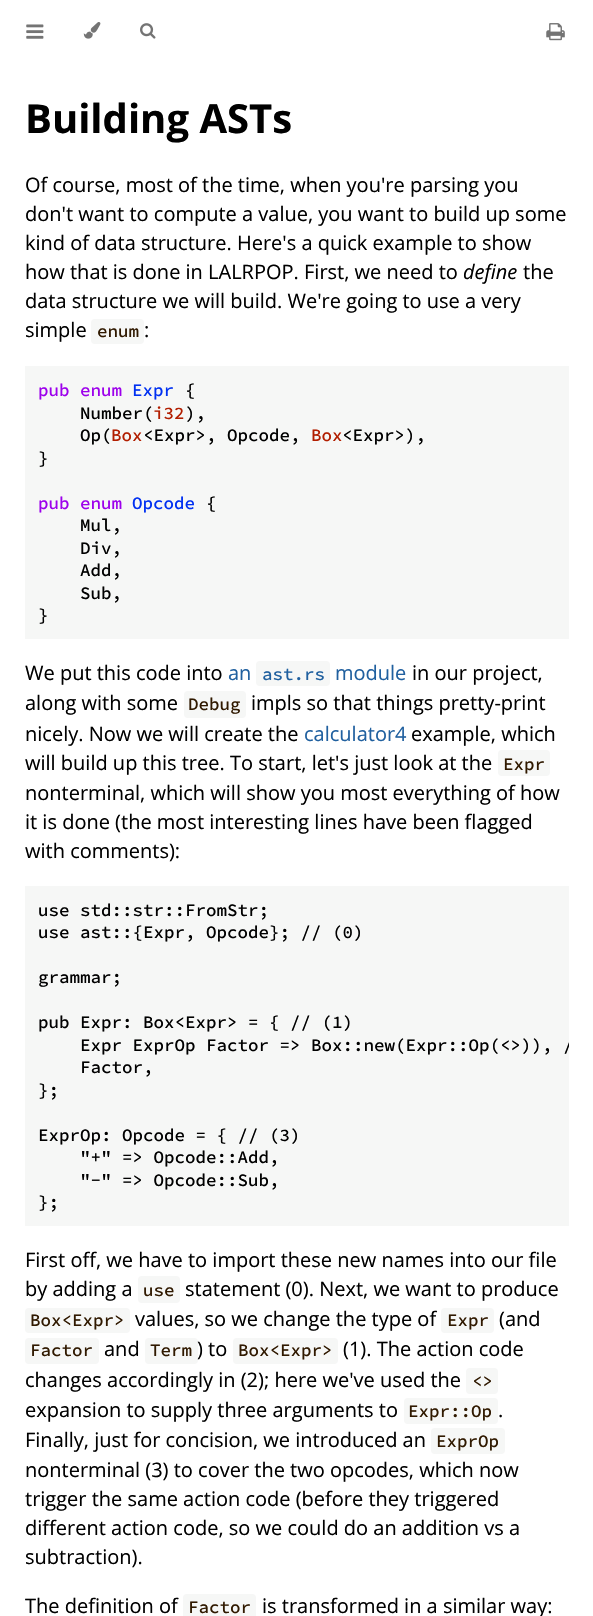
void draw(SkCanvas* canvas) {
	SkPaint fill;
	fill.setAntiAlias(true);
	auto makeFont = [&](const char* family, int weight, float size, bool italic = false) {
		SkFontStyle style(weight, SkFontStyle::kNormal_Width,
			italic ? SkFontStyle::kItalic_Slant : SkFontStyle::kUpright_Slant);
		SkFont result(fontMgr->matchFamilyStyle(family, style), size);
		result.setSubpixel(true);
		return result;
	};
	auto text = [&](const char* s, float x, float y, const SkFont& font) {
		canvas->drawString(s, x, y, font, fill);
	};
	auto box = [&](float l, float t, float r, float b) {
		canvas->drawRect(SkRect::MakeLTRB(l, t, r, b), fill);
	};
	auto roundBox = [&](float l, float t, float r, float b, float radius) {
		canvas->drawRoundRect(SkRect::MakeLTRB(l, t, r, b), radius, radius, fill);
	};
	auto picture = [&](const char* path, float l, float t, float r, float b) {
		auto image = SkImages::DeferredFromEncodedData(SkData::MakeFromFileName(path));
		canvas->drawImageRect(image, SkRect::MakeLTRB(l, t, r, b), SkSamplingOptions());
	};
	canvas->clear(0xFFFFFFFF);
	picture("image0.png", 26, 24, 44, 39);
	picture("image1.png", 83, 22, 101, 39);
	picture("image2.png", 140, 23, 156, 39);
	picture("image3.png", 546, 23, 565, 41);
	fill.setColor(0xFFF6F7F6);
	roundBox(91, 319, 144, 344, 4);
	box(25, 366, 569, 639);
	roundBox(256, 661, 330, 686, 4);
	roundBox(184, 691, 246, 718, 4);
	roundBox(498, 750, 550, 776, 4);
	box(25, 886, 569, 1226);
	roundBox(138, 1276, 180, 1303, 4);
	roundBox(25, 1308, 130, 1333, 4);
	roundBox(441, 1308, 494, 1333, 4);
	roundBox(25, 1338, 99, 1364, 4);
	roundBox(145, 1338, 198, 1364, 4);
	roundBox(233, 1338, 338, 1364, 4);
	roundBox(466, 1368, 498, 1394, 4);
	roundBox(404, 1398, 498, 1424, 4);
	roundBox(431, 1428, 505, 1454, 4);
	roundBox(183, 1594, 256, 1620, 4);
	auto font1 = makeFont("Open Sans", 700, 40);
	fill.setColor(0xFF000000);
	text("Building ASTs", 25, 133, font1);
	auto font2 = makeFont("Open Sans", 400, 20);
	text("Of course, most of the time, when you're parsing you", 25, 192, font2);
	text("don't want to compute a value, you want to build up some", 25, 221, font2);
	text("kind of data structure. Here's a quick example to show", 25, 250, font2);
	text("how that is done in LALRPOP. First, we need to", 25, 279, font2);
	auto font3 = makeFont("Open Sans", 400, 20, true);
	text("define", 463, 279, font3);
	text("the", 523, 279, font2);
	text("data structure we will build. We're going to use a very", 25, 308, font2);
	text("simple", 25, 337, font2);
	auto font4 = makeFont("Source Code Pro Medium", 500, 17.5f);
	fill.setColor(0xFF301900);
	text("enum", 97, 337, font4);
	fill.setColor(0xFF000000);
	text(":", 144, 337, font2);
	fill.setColor(0xFF9D00EC);
	text("pub enum", 38, 396, font4);
	fill.setColor(0xFF0030F2);
	text("Expr", 132, 396, font4);
	fill.setColor(0xFF000000);
	text("{", 185, 396, font4);
	text("Number(", 80, 419, font4);
	fill.setColor(0xFFB21E00);
	text("i32", 153, 419, font4);
	fill.setColor(0xFF000000);
	text("),", 185, 419, font4);
	text("Op(", 80, 441, font4);
	fill.setColor(0xFFB21E00);
	text("Box", 111, 441, font4);
	fill.setColor(0xFF000000);
	text("<Expr>, Opcode,", 143, 441, font4);
	fill.setColor(0xFFB21E00);
	text("Box", 311, 441, font4);
	fill.setColor(0xFF000000);
	text("<Expr>),", 342, 441, font4);
	text("}", 38, 464, font4);
	fill.setColor(0xFF9D00EC);
	text("pub enum", 38, 509, font4);
	fill.setColor(0xFF0030F2);
	text("Opcode", 132, 509, font4);
	fill.setColor(0xFF000000);
	text("{", 206, 509, font4);
	text("Mul,", 80, 531, font4);
	text("Div,", 80, 554, font4);
	text("Add,", 80, 576, font4);
	text("Sub,", 80, 599, font4);
	text("}", 38, 621, font4);
	text("We put this code into", 25, 680, font2);
	fill.setColor(0xFF20609F);
	text("an", 228, 680, font2);
	text("ast.rs", 262, 680, font4);
	text("module", 335, 680, font2);
	fill.setColor(0xFF000000);
	text("in our project,", 412, 680, font2);
	text("along with some", 25, 710, font2);
	fill.setColor(0xFF301900);
	text("Debug", 188, 710, font4);
	fill.setColor(0xFF000000);
	text("impls so that things pretty-print", 251, 710, font2);
	text("nicely. Now we will create the", 25, 741, font2);
	fill.setColor(0xFF20609F);
	text("calculator4", 304, 741, font2);
	fill.setColor(0xFF000000);
	text("example, which", 411, 741, font2);
	text("will build up this tree. To start, let's just look at the", 25, 770, font2);
	fill.setColor(0xFF301900);
	text("Expr", 503, 770, font4);
	fill.setColor(0xFF000000);
	text("nonterminal, which will show you most everything of how", 25, 800, font2);
	text("it is done (the most interesting lines have been flagged", 25, 829, font2);
	text("with comments):", 25, 858, font2);
	text("use std::str::FromStr;", 38, 916, font4);
	text("use ast::{Expr, Opcode}; // (0)", 38, 938, font4);
	text("grammar;", 38, 983, font4);
	text("pub Expr: Box<Expr> = { // (1)", 38, 1028, font4);
	canvas->save();
	canvas->clipRect(SkRect::MakeLTRB(25, 886, 569, 1226));
	text("Expr ExprOp Factor => Box::new(Expr::Op(<>)), /", 80, 1051, font4);
	canvas->restore();
	text("Factor,", 80, 1073, font4);
	text("};", 38, 1096, font4);
	text("ExprOp: Opcode = { // (3)", 38, 1141, font4);
	text("\"+\" => Opcode::Add,", 80, 1163, font4);
	text("\"-\" => Opcode::Sub,", 80, 1186, font4);
	text("};", 38, 1208, font4);
	text("First off, we have to import these new names into our file", 25, 1267, font2);
	text("by adding a", 25, 1296, font2);
	fill.setColor(0xFF301900);
	text("use", 143, 1296, font4);
	fill.setColor(0xFF000000);
	text("statement (0). Next, we want to produce", 185, 1296, font2);
	fill.setColor(0xFF301900);
	text("Box<Expr>", 30, 1326, font4);
	fill.setColor(0xFF000000);
	text("values, so we change the type of", 135, 1326, font2);
	fill.setColor(0xFF301900);
	text("Expr", 447, 1326, font4);
	fill.setColor(0xFF000000);
	text("(and", 499, 1326, font2);
	fill.setColor(0xFF301900);
	text("Factor", 30, 1356, font4);
	fill.setColor(0xFF000000);
	text("and", 104, 1356, font2);
	fill.setColor(0xFF301900);
	text("Term", 150, 1356, font4);
	fill.setColor(0xFF000000);
	text(") to", 197, 1356, font2);
	fill.setColor(0xFF301900);
	text("Box<Expr>", 238, 1356, font4);
	fill.setColor(0xFF000000);
	text("(1). The action code", 343, 1356, font2);
	text("changes accordingly in (2); here we've used the", 25, 1387, font2);
	fill.setColor(0xFF301900);
	text("<>", 472, 1387, font4);
	fill.setColor(0xFF000000);
	text("expansion to supply three arguments to", 25, 1417, font2);
	fill.setColor(0xFF301900);
	text("Expr::Op", 408, 1417, font4);
	fill.setColor(0xFF000000);
	text(".", 498, 1417, font2);
	text("Finally, just for concision, we introduced an", 25, 1447, font2);
	fill.setColor(0xFF301900);
	text("ExprOp", 436, 1447, font4);
	fill.setColor(0xFF000000);
	text("nonterminal (3) to cover the two opcodes, which now", 25, 1477, font2);
	text("trigger the same action code (before they triggered", 25, 1506, font2);
	text("different action code, so we could do an addition vs a", 25, 1535, font2);
	text("subtraction).", 25, 1564, font2);
	text("The definition of", 25, 1613, font2);
	fill.setColor(0xFF301900);
	text("Factor", 188, 1613, font4);
	fill.setColor(0xFF000000);
	text("is transformed in a similar way:", 262, 1613, font2);
}
